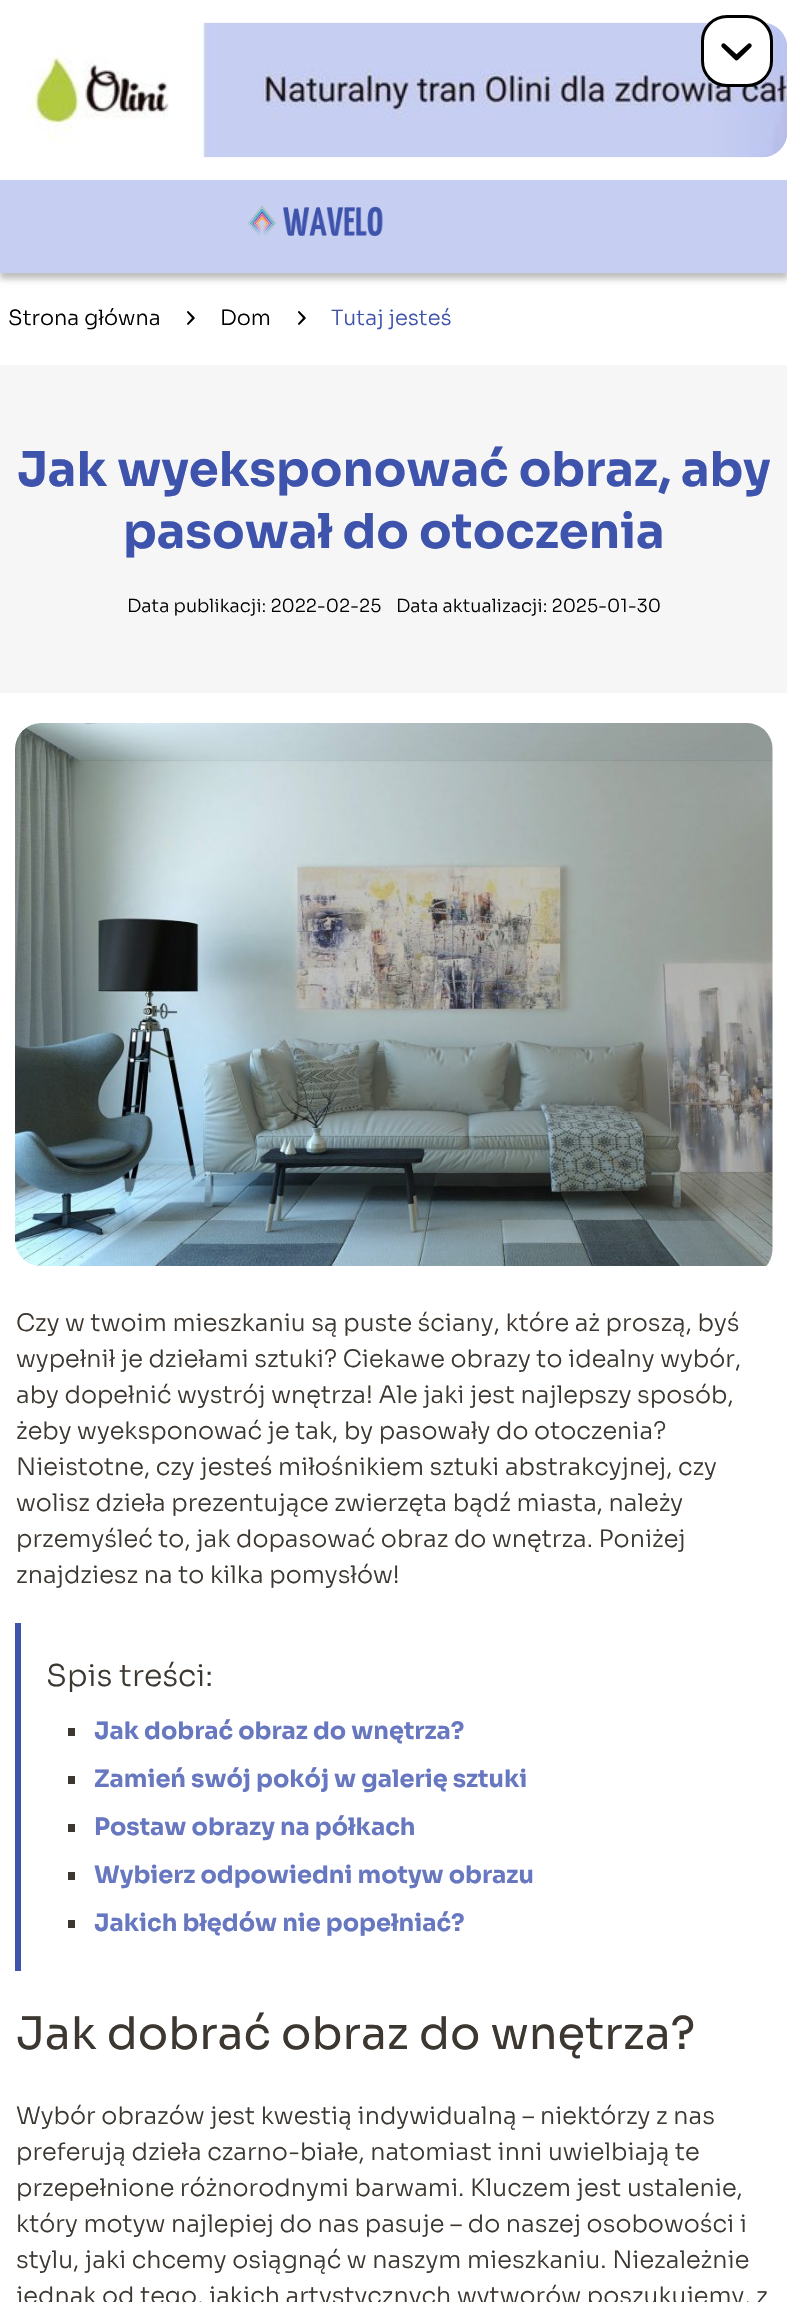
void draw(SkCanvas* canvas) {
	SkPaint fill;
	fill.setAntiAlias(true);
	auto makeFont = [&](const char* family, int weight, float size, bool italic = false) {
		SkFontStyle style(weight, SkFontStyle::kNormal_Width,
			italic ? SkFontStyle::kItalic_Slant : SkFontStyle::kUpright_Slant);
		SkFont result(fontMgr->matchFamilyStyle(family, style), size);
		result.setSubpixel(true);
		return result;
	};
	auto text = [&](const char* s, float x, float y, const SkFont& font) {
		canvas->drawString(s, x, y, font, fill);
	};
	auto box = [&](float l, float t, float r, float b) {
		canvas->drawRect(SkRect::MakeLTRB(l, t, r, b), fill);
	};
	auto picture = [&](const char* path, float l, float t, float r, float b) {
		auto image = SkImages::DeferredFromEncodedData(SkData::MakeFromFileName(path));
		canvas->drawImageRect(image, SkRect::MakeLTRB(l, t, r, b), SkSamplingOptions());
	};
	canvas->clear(0xFFFFFFFF);
	picture("image2.png", 27, 22, 787, 158);
	fill.setColor(0xFFFFFFFF);
	canvas->drawRoundRect(SkRect::MakeLTRB(702.5f, 16.5f, 771.5f, 85.5f), 24.5f, 24.5f, fill);
	fill.setStyle(SkPaint::kStroke_Style);
	fill.setStrokeWidth(3);
	fill.setColor(0xFF000000);
	canvas->drawRoundRect(SkRect::MakeLTRB(702.5f, 16.5f, 771.5f, 85.5f), 24.5f, 24.5f, fill);
	picture("image0.png", 721, 43, 752, 61);
	fill.setStyle(SkPaint::kFill_Style);
	fill.setColor(0x40000000);
	fill.setMaskFilter(SkMaskFilter::MakeBlur(kNormal_SkBlurStyle, 3));
	canvas->drawRect(SkRect::MakeLTRB(0, 186, 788, 279), fill);
	fill.setMaskFilter(nullptr);
	fill.setColor(0xFFC6CEF1);
	box(0, 180, 787, 273);
	picture("image1.png", 247, 205, 383, 238);
	picture("image3.png", 187, 311, 195, 325);
	picture("image3.png", 298, 311, 306, 325);
	fill.setColor(0xFFF6F6F6);
	box(0, 365, 787, 693);
	picture("image4.png", 15, 723, 773, 1266);
	fill.setColor(0xFF3E53AC);
	box(15, 1623, 21, 1971);
	fill.setColor(0xFF3D3731);
	box(68, 1728, 75, 1736);
	box(68, 1776, 75, 1784);
	box(68, 1824, 75, 1832);
	box(68, 1872, 75, 1880);
	box(68, 1920, 75, 1928);
	auto font1 = makeFont("Sora", 300, 21);
	fill.setColor(0xFF000000);
	text("Strona główna", 8, 325, font1);
	text("Dom", 220, 325, font1);
	fill.setColor(0xFF3E53AC);
	text("Tutaj jesteś", 331, 325, font1);
	auto font2 = makeFont("Sora", 700, 48);
	text("Jak wyeksponować obraz, aby", 17, 486, font2);
	text("pasował do otoczenia", 123, 548, font2);
	auto font3 = makeFont("Sora", 300, 18);
	fill.setColor(0xFF000000);
	text("Data publikacji: 2022-02-25", 127, 612, font3);
	text("Data aktualizacji: 2025-01-30", 396, 612, font3);
	auto font4 = makeFont("Sora", 300, 24);
	fill.setColor(0xFF3D3731);
	text("Czy w twoim mieszkaniu są puste ściany, które aż proszą, byś", 16, 1331, font4);
	text("wypełnił je dziełami sztuki? Ciekawe obrazy to idealny wybór,", 16, 1367, font4);
	text("aby dopełnić wystrój wnętrza! Ale jaki jest najlepszy sposób,", 16, 1403, font4);
	text("żeby wyeksponować je tak, by pasowały do otoczenia?", 16, 1439, font4);
	text("Nieistotne, czy jesteś miłośnikiem sztuki abstrakcyjnej, czy", 16, 1475, font4);
	text("wolisz dzieła prezentujące zwierzęta bądź miasta, należy", 16, 1511, font4);
	text("przemyśleć to, jak dopasować obraz do wnętrza. Poniżej", 16, 1547, font4);
	text("znajdziesz na to kilka pomysłów!", 16, 1583, font4);
	auto font5 = makeFont("Sora", 300, 30);
	text("Spis treści:", 46, 1686, font5);
	auto font6 = makeFont("Sora", 700, 24);
	fill.setColor(0xFF6777C0);
	text("Jak dobrać obraz do wnętrza?", 94, 1739, font6);
	text("Zamień swój pokój w galerię sztuki", 94, 1787, font6);
	text("Postaw obrazy na półkach", 94, 1835, font6);
	text("Wybierz odpowiedni motyw obrazu", 94, 1883, font6);
	text("Jakich błędów nie popełniać?", 94, 1931, font6);
	auto font7 = makeFont("Sora", 400, 45);
	fill.setColor(0xFF3D3731);
	text("Jak dobrać obraz do wnętrza?", 16, 2049, font7);
	text("Wybór obrazów jest kwestią indywidualną – niektórzy z nas", 16, 2124, font4);
	text("preferują dzieła czarno-białe, natomiast inni uwielbiają te", 16, 2160, font4);
	text("przepełnione różnorodnymi barwami. Kluczem jest ustalenie,", 16, 2196, font4);
	text("który motyw najlepiej do nas pasuje – do naszej osobowości i", 16, 2232, font4);
	text("stylu, jaki chcemy osiągnąć w naszym mieszkaniu. Niezależnie", 16, 2268, font4);
	text("jednak od tego, jakich artystycznych wytworów poszukujemy, z", 16, 2304, font4);
}
